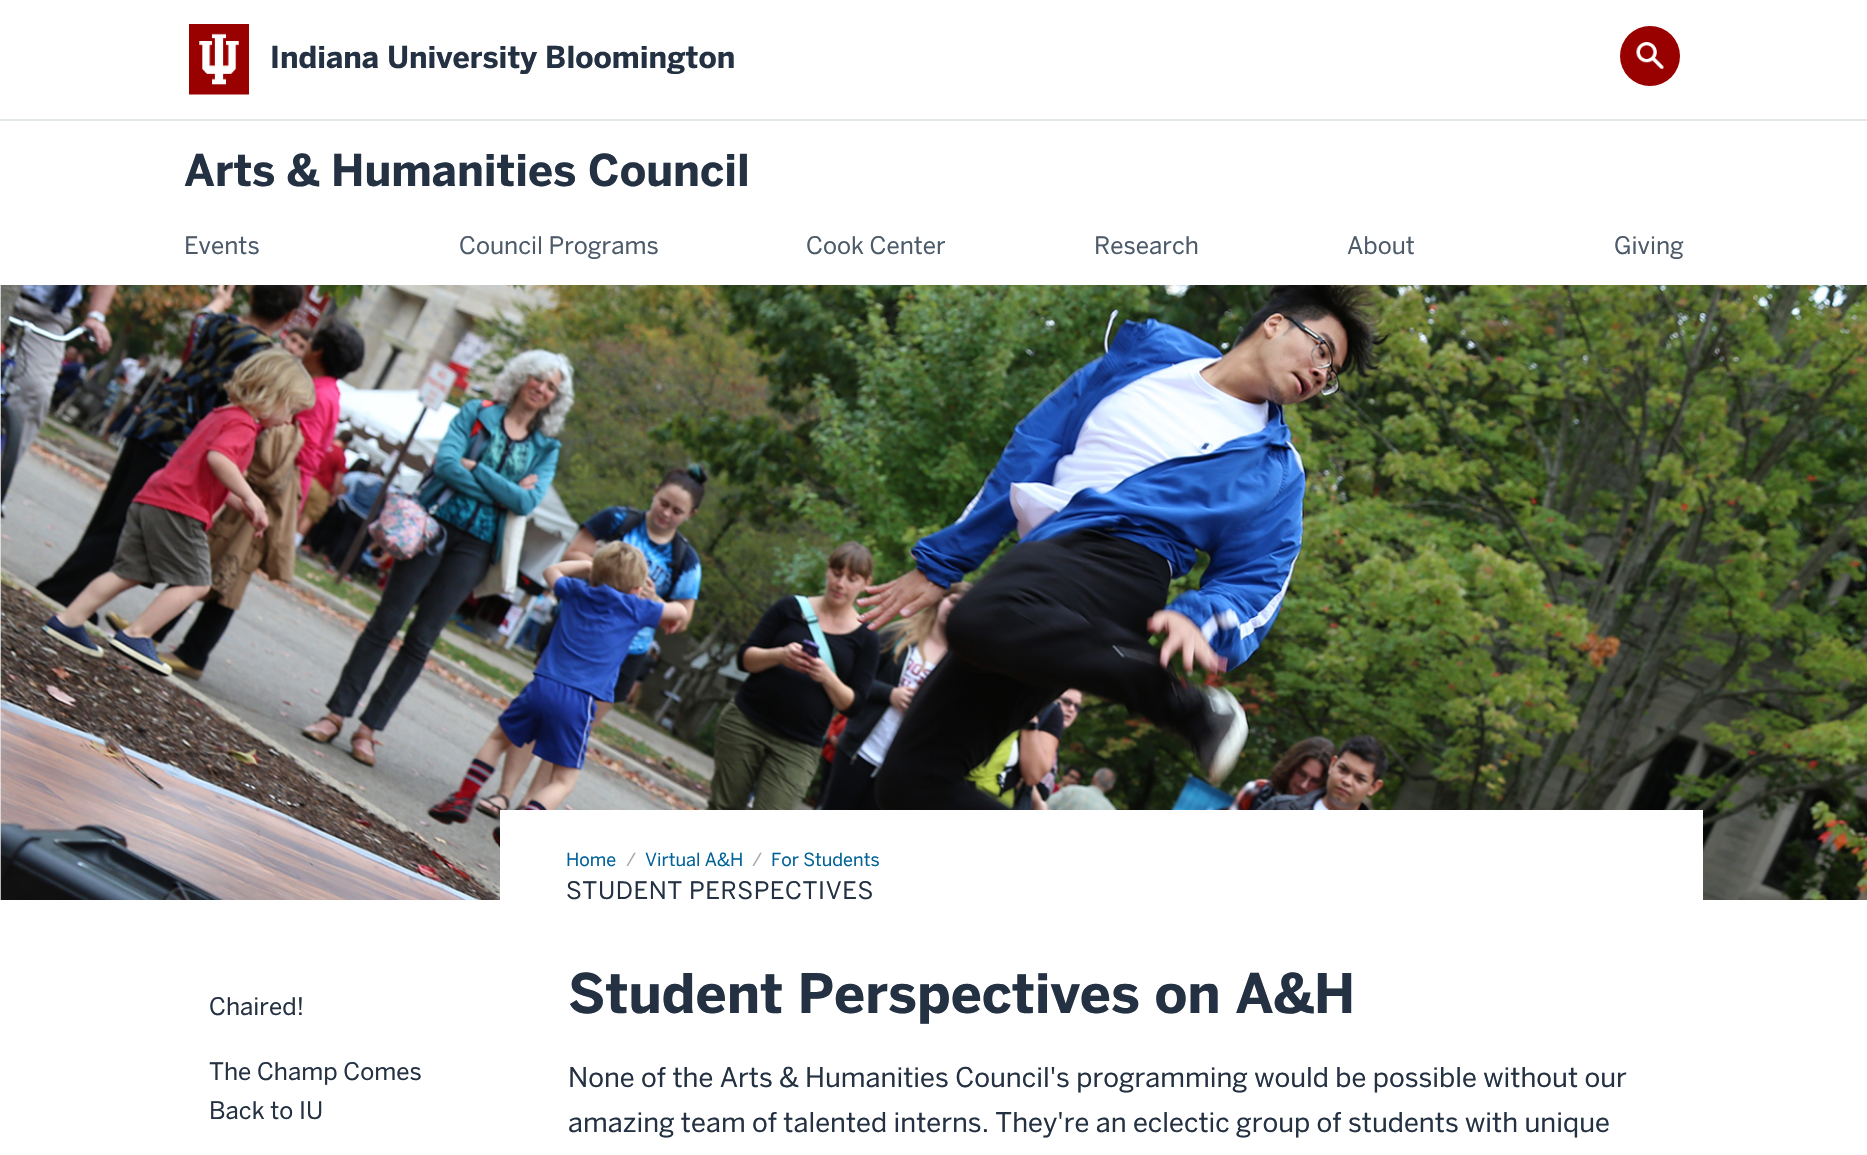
void draw(SkCanvas* canvas) {
	SkPaint fill;
	fill.setAntiAlias(true);
	auto makeFont = [&](const char* family, int weight, float size, bool italic = false) {
		SkFontStyle style(weight, SkFontStyle::kNormal_Width,
			italic ? SkFontStyle::kItalic_Slant : SkFontStyle::kUpright_Slant);
		SkFont result(fontMgr->matchFamilyStyle(family, style), size);
		result.setSubpixel(true);
		return result;
	};
	auto text = [&](const char* s, float x, float y, const SkFont& font) {
		canvas->drawString(s, x, y, font, fill);
	};
	auto spacedText = [&](const char* s, float x, float y, const SkFont& font, const SkPaint& ink, float letter, float word) {
		std::vector<SkGlyphID> glyphs(font.countText(s, strlen(s), SkTextEncoding::kUTF8));
		std::vector<float> xs(glyphs.size());
		font.textToGlyphs(s, strlen(s), SkTextEncoding::kUTF8, glyphs);
		font.getXPos(glyphs, xs, x);
		float extra = 0;
		for (size_t i = 0; i < glyphs.size(); i++) {
			xs[i] += extra;
			extra += letter + word * (glyphs[i] == font.unicharToGlyph(' '));
		}
		canvas->drawTextBlob(SkTextBlob::MakeFromPosHGlyphs(glyphs, xs, y, font), 0, 0, ink);
	};
	auto box = [&](float l, float t, float r, float b) {
		canvas->drawRect(SkRect::MakeLTRB(l, t, r, b), fill);
	};
	auto picture = [&](const char* path, float l, float t, float r, float b) {
		auto image = SkImages::DeferredFromEncodedData(SkData::MakeFromFileName(path));
		canvas->drawImageRect(image, SkRect::MakeLTRB(l, t, r, b), SkSamplingOptions());
	};
	canvas->clear(0xFFFFFFFF);
	fill.setColor(0xFFE2E7E9);
	box(0, 119, 1867, 121);
	picture("image0.png", 189, 24, 249, 95);
	fill.setColor(0xFF990000);
	canvas->drawCircle(1650, 56, 30, fill);
	picture("image1.png", 1636, 42, 1664, 69);
	fill.setColor(0xFFEDEDEA);
	box(0, 285, 1, 900);
	picture("image2.png", 0, 285, 1867, 900);
	fill.setColor(0xFFFFFFFF);
	box(500, 810, 1703, 900);
	auto font1 = makeFont("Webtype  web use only", 700, 30);
	fill.setColor(0xFF243142);
	text("Indiana University Bloomington", 270, 68, font1);
	auto font2 = makeFont("Webtype  web use only", 700, 43.5f);
	text("Arts & Humanities Council", 184, 186, font2);
	auto font3 = makeFont("Webtype  web use only", 400, 24);
	fill.setColor(0xFF4C5A69);
	text("Events", 184, 254, font3);
	text("Council Programs", 459, 254, font3);
	text("Cook Center", 806, 254, font3);
	text("Research", 1094, 254, font3);
	text("About", 1347, 254, font3);
	text("Giving", 1614, 254, font3);
	auto font4 = makeFont("Webtype  web use only", 400, 18);
	fill.setColor(0xFF006298);
	text("Home", 566, 866, font4);
	fill.setColor(0xFFAAAAAA);
	text("/", 626, 866, font4);
	fill.setColor(0xFF006298);
	text("Virtual A&H", 645, 866, font4);
	fill.setColor(0xFFAAAAAA);
	text("/", 752, 866, font4);
	fill.setColor(0xFF006298);
	text("For Students", 771, 866, font4);
	fill.setColor(0xFF243142);
	spacedText("STUDENT PERSPECTIVES", 566, 899, font3, fill, 0.6f, 0);
	text("Chaired!", 209, 1015, font3);
	text("The Champ Comes", 209, 1080, font3);
	text("Back to IU", 209, 1119, font3);
	auto font5 = makeFont("Webtype  web use only", 700, 54);
	text("Student Perspectives on A&H", 568, 1013, font5);
	auto font6 = makeFont("Webtype  web use only", 400, 27);
	text("None of the Arts & Humanities Council's programming would be possible without our", 568, 1087, font6);
	text("amazing team of talented interns. They're an eclectic group of students with unique", 568, 1132, font6);
}
